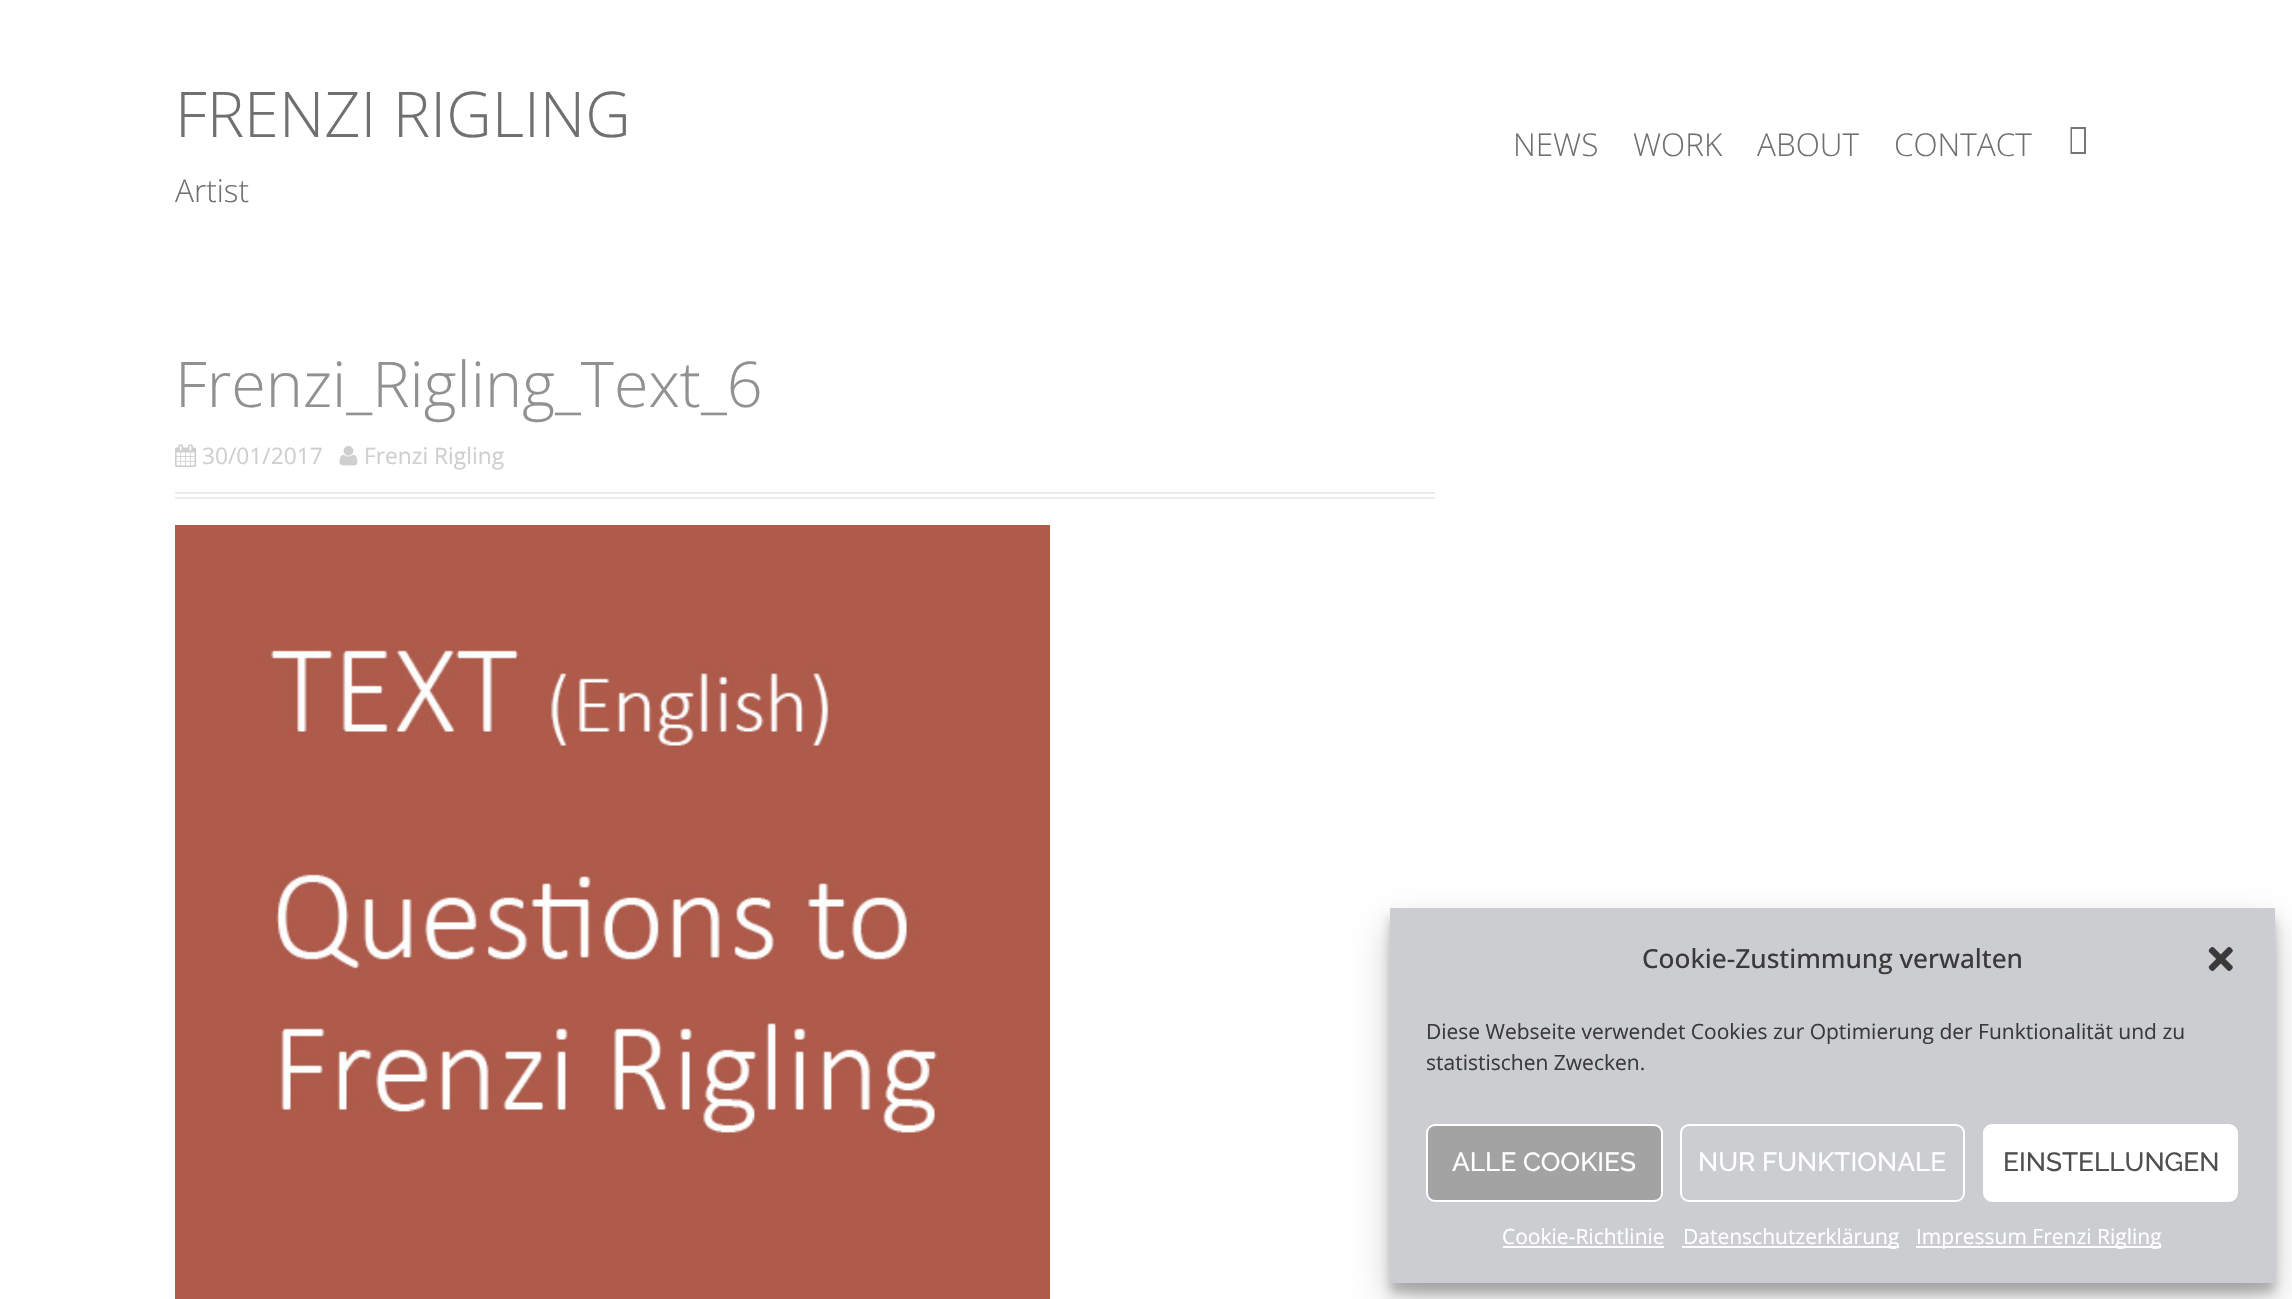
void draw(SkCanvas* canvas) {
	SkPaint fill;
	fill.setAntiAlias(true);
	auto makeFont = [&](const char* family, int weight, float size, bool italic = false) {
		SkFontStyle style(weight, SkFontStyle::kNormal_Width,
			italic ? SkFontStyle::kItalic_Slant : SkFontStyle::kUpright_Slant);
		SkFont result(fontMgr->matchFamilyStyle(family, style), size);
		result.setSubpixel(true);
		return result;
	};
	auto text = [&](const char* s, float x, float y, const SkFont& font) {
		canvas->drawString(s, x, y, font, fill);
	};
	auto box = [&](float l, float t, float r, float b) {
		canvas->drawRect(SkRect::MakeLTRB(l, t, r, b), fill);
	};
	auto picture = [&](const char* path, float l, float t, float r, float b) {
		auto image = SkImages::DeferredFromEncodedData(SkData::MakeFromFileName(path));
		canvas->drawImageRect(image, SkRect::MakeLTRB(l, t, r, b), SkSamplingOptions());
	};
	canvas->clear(0xFFFFFFFF);
	fill.setColor(0xFF757575);
	canvas->drawPath(SkPathBuilder().moveTo(2070.5f, 154).lineTo(2070.5f, 127).lineTo(2086, 127).lineTo(2086, 154).close().moveTo(2072, 152).lineTo(2084, 152).lineTo(2084, 129).lineTo(2072, 129).close().detach(), fill);
	fill.setColor(0xFFEBEBEB);
	box(175, 492, 1435, 494);
	box(175, 497, 1435, 499);
	picture("image0.png", 175, 444, 197, 467);
	picture("image1.png", 339, 445, 358, 466);
	picture("image2.png", 175, 525, 1050, 1299);
	fill.setColor(0x3B000000);
	fill.setMaskFilter(SkMaskFilter::MakeBlur(kNormal_SkBlurStyle, 5));
	canvas->drawRect(SkRect::MakeLTRB(1390, 919, 2275, 1293), fill);
	fill.setMaskFilter(nullptr);
	fill.setColor(0x30000000);
	fill.setMaskFilter(SkMaskFilter::MakeBlur(kNormal_SkBlurStyle, 17.5f));
	canvas->drawRect(SkRect::MakeLTRB(1390, 926, 2275, 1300), fill);
	fill.setMaskFilter(nullptr);
	fill.setColor(0xFFCBCDD1);
	box(1390, 908, 2275, 1283);
	picture("image3.png", 2208, 947, 2233, 971);
	fill.setColor(0xFFA3A3A3);
	canvas->drawRoundRect(SkRect::MakeLTRB(1427, 1125, 1662, 1201), 8, 8, fill);
	fill.setStyle(SkPaint::kStroke_Style);
	fill.setStrokeWidth(2);
	fill.setColor(0xFFFFFFFF);
	canvas->drawRoundRect(SkRect::MakeLTRB(1427, 1125, 1662, 1201), 8, 8, fill);
	canvas->drawRoundRect(SkRect::MakeLTRB(1681, 1125, 1964, 1201), 8, 8, fill);
	fill.setStyle(SkPaint::kFill_Style);
	canvas->drawRoundRect(SkRect::MakeLTRB(1984, 1125, 2237, 1201), 8, 8, fill);
	fill.setStyle(SkPaint::kStroke_Style);
	canvas->drawRoundRect(SkRect::MakeLTRB(1984, 1125, 2237, 1201), 8, 8, fill);
	fill.setStyle(SkPaint::kFill_Style);
	box(1503, 1246, 1664, 1248);
	box(1682, 1246, 1899, 1248);
	box(1916, 1246, 2161, 1248);
	auto font1 = makeFont("Open Sans", 300, 63);
	fill.setColor(0xFF707070);
	text("FRENZI RIGLING", 175, 137, font1);
	auto font2 = makeFont("Open Sans", 300, 31.5f);
	text("Artist", 175, 202, font2);
	text("NEWS", 1513, 156, font2);
	text("WORK", 1633, 156, font2);
	text("ABOUT", 1757, 156, font2);
	text("CONTACT", 1894, 156, font2);
	fill.setColor(0xFF919191);
	text("Frenzi_Rigling_Text_6", 175, 407, font1);
	auto font3 = makeFont("Open Sans", 400, 22.75f);
	fill.setColor(0xFFCFCFCF);
	text("30/01/2017", 202, 464, font3);
	text("Frenzi Rigling", 364, 464, font3);
	auto font4 = makeFont("Open Sans", 500, 26.25f);
	fill.setColor(0xFF3A3A3A);
	text("Cookie-Zustimmung verwalten", 1642, 968, font4);
	auto font5 = makeFont("Open Sans", 400, 21);
	text("Diese Webseite verwendet Cookies zur Optimierung der Funktionalität und zu", 1426, 1039, font5);
	text("statistischen Zwecken.", 1426, 1070, font5);
	auto font6 = makeFont("Raleway", 500, 26.25f);
	fill.setColor(0xFFFFFFFF);
	text("ALLE COOKIES", 1452, 1171, font6);
	text("NUR FUNKTIONALE", 1698, 1171, font6);
	fill.setColor(0xFF4F4F4F);
	text("EINSTELLUNGEN", 2003, 1171, font6);
	fill.setColor(0xFFFFFFFF);
	text("Cookie-Richtlinie", 1502, 1244, font5);
	text("Datenschutzerklärung", 1683, 1244, font5);
	text("Impressum Frenzi Rigling", 1916, 1244, font5);
}
